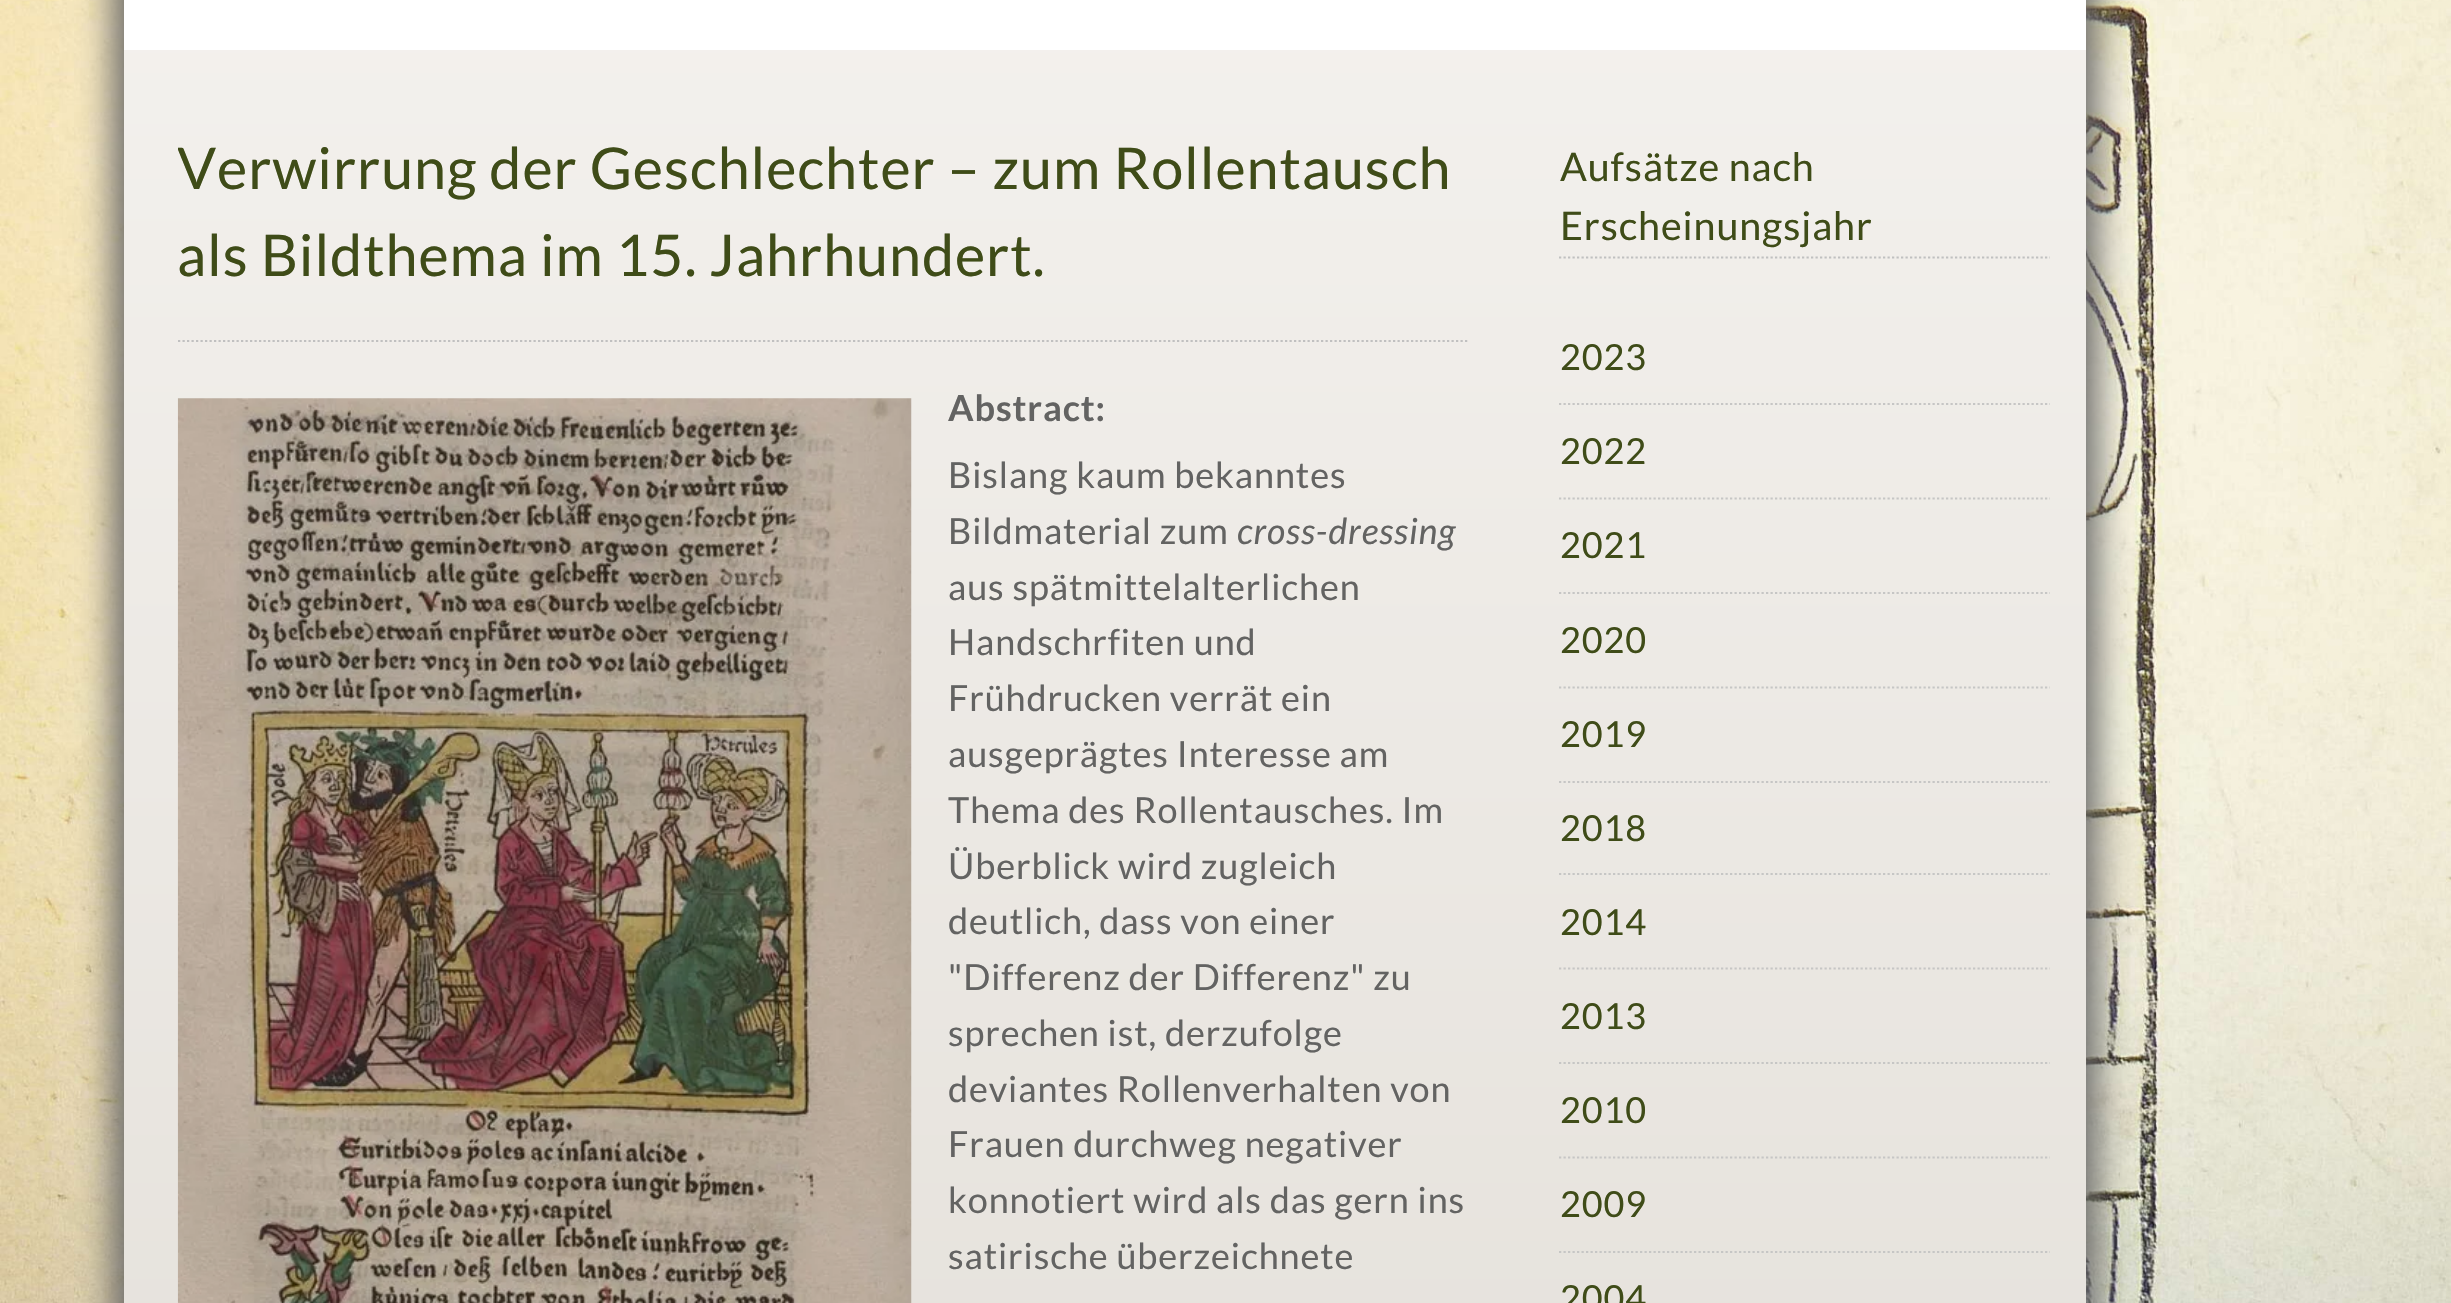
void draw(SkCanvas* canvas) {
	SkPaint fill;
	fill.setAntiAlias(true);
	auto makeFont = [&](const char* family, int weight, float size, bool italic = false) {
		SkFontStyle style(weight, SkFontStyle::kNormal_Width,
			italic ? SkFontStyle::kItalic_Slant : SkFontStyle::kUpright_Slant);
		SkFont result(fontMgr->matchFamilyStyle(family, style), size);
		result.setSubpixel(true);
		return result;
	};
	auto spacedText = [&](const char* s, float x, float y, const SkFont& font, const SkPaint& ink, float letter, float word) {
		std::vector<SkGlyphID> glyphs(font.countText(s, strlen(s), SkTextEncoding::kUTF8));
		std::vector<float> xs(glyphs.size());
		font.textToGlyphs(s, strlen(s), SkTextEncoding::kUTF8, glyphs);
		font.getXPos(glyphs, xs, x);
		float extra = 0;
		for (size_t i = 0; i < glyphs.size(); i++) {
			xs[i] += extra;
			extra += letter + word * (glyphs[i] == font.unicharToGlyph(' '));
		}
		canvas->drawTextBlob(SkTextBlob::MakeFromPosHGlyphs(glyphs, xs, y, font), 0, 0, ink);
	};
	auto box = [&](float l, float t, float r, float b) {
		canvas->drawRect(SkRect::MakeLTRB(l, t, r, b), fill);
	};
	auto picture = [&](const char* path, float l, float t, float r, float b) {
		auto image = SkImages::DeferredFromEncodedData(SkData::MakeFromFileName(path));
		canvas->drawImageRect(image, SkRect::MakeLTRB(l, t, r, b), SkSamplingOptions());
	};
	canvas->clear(0xFFFFFFFF);
	picture("image0.png", 0, 0, 2451, 1303);
	fill.setColor(0xFF666666);
	fill.setMaskFilter(SkMaskFilter::MakeBlur(kNormal_SkBlurStyle, 17));
	canvas->drawRect(SkRect::MakeLTRB(113, -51, 2097, 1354), fill);
	fill.setMaskFilter(nullptr);
	{
		const SkColor colors[] = {0xFFF7F5F2, 0xFFDAD5CD};
		const float stops[] = {0, 1};
		const SkPoint ends[] = {{1105, -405}, {1105, 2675}};
		fill.setShader(SkGradientShader::MakeLinear(ends, colors, stops, 2, SkTileMode::kClamp));
		fill.setAlpha(255);
	}
	box(124, 50, 2086, 1303);
	fill.setShader(nullptr);
	fill.setColor(0xFFFFFFFF);
	box(124, 0, 2086, 50);
	fill.setStyle(SkPaint::kStroke_Style);
	fill.setStrokeWidth(2.2f);
	fill.setColor(0xFFC0C0C0);
	fill.setPathEffect(SkDashPathEffect::Make({{2.25f, 2.25f}}, 0));
	canvas->drawPath(SkPathBuilder().moveTo(178, 341).lineTo(1469, 341).detach(), fill);
	fill.setPathEffect(nullptr);
	picture("image1.png", 177, 398, 912, 1303);
	fill.setPathEffect(SkDashPathEffect::Make({{2.25f, 2.25f}}, 0));
	canvas->drawPath(SkPathBuilder().moveTo(1559, 257.5f).lineTo(2050, 257.5f).detach(), fill);
	fill.setPathEffect(nullptr);
	fill.setColor(0xFFC6C6C5);
	fill.setPathEffect(SkDashPathEffect::Make({{2.25f, 2.25f}}, 0));
	canvas->drawPath(SkPathBuilder().moveTo(1559, 404).lineTo(2050, 404).detach(), fill);
	fill.setPathEffect(nullptr);
	fill.setPathEffect(SkDashPathEffect::Make({{2.25f, 2.25f}}, 0));
	canvas->drawPath(SkPathBuilder().moveTo(1559, 498.5f).lineTo(2050, 498.5f).detach(), fill);
	fill.setPathEffect(nullptr);
	fill.setPathEffect(SkDashPathEffect::Make({{2.25f, 2.25f}}, 0));
	canvas->drawPath(SkPathBuilder().moveTo(1559, 593).lineTo(2050, 593).detach(), fill);
	fill.setPathEffect(nullptr);
	fill.setPathEffect(SkDashPathEffect::Make({{2.25f, 2.25f}}, 0));
	canvas->drawPath(SkPathBuilder().moveTo(1559, 687.5f).lineTo(2050, 687.5f).detach(), fill);
	fill.setPathEffect(nullptr);
	fill.setPathEffect(SkDashPathEffect::Make({{2.25f, 2.25f}}, 0));
	canvas->drawPath(SkPathBuilder().moveTo(1559, 782).lineTo(2050, 782).detach(), fill);
	fill.setPathEffect(nullptr);
	fill.setPathEffect(SkDashPathEffect::Make({{2.25f, 2.25f}}, 0));
	canvas->drawPath(SkPathBuilder().moveTo(1559, 874).lineTo(2050, 874).detach(), fill);
	fill.setPathEffect(nullptr);
	fill.setPathEffect(SkDashPathEffect::Make({{2.25f, 2.25f}}, 0));
	canvas->drawPath(SkPathBuilder().moveTo(1559, 968.5f).lineTo(2050, 968.5f).detach(), fill);
	fill.setPathEffect(nullptr);
	fill.setPathEffect(SkDashPathEffect::Make({{2.25f, 2.25f}}, 0));
	canvas->drawPath(SkPathBuilder().moveTo(1559, 1063).lineTo(2050, 1063).detach(), fill);
	fill.setPathEffect(nullptr);
	fill.setPathEffect(SkDashPathEffect::Make({{2.25f, 2.25f}}, 0));
	canvas->drawPath(SkPathBuilder().moveTo(1559, 1157.5f).lineTo(2050, 1157.5f).detach(), fill);
	fill.setPathEffect(nullptr);
	fill.setPathEffect(SkDashPathEffect::Make({{2.25f, 2.25f}}, 0));
	canvas->drawPath(SkPathBuilder().moveTo(1559, 1252).lineTo(2050, 1252).detach(), fill);
	fill.setPathEffect(nullptr);
	canvas->save();
	canvas->clipRect(SkRect::MakeLTRB(178, 86, 1469, 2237));
	auto font1 = makeFont("Lato", 400, 57.6f);
	fill.setStyle(SkPaint::kFill_Style);
	fill.setColor(0xFF3F4C18);
	spacedText("Verwirrung der Geschlechter – zum Rollentausch", 177, 189, font1, fill, 0.9f, 0);
	canvas->restore();
	spacedText("als Bildthema im 15. Jahrhundert.", 177, 276, font1, fill, 0.9f, 0);
	auto font2 = makeFont("Lato", 700, 36);
	fill.setColor(0xFF636362);
	spacedText("Abstract:", 948, 421, font2, fill, 0.9f, 0);
	auto font3 = makeFont("Lato", 400, 36);
	spacedText("Bislang kaum bekanntes", 948, 488, font3, fill, 0.9f, 0);
	spacedText("Bildmaterial zum", 948, 544, font3, fill, 0.9f, 0);
	auto font4 = makeFont("Lato", 400, 36, true);
	spacedText("cross-dressing", 1237, 544, font4, fill, 0.9f, 0);
	spacedText("aus spätmittelalterlichen", 948, 600, font3, fill, 0.9f, 0);
	spacedText("Handschrfiten und", 948, 655, font3, fill, 0.9f, 0);
	spacedText("Frühdrucken verrät ein", 948, 711, font3, fill, 0.9f, 0);
	spacedText("ausgeprägtes Interesse am", 948, 767, font3, fill, 0.9f, 0);
	spacedText("Thema des Rollentausches. Im", 948, 823, font3, fill, 0.9f, 0);
	spacedText("Überblick wird zugleich", 948, 879, font3, fill, 0.9f, 0);
	spacedText("deutlich, dass von einer", 948, 934, font3, fill, 0.9f, 0);
	spacedText("\"Differenz der Differenz\" zu", 948, 990, font3, fill, 0.9f, 0);
	spacedText("sprechen ist, derzufolge", 948, 1046, font3, fill, 0.9f, 0);
	spacedText("deviantes Rollenverhalten von", 948, 1102, font3, fill, 0.9f, 0);
	spacedText("Frauen durchweg negativer", 948, 1157, font3, fill, 0.9f, 0);
	spacedText("konnotiert wird als das gern ins", 948, 1213, font3, fill, 0.9f, 0);
	spacedText("satirische überzeichnete", 948, 1269, font3, fill, 0.9f, 0);
	auto font5 = makeFont("Lato", 400, 39.5f);
	fill.setColor(0xFF3F4C18);
	spacedText("Aufsätze nach", 1560, 181, font5, fill, 0.9f, 0);
	spacedText("Erscheinungsjahr", 1560, 240, font5, fill, 0.9f, 0);
	spacedText("2023", 1560, 370, font3, fill, 0.9f, 0);
	spacedText("2022", 1560, 464, font3, fill, 0.9f, 0);
	spacedText("2021", 1560, 558, font3, fill, 0.9f, 0);
	spacedText("2020", 1560, 653, font3, fill, 0.9f, 0);
	spacedText("2019", 1560, 747, font3, fill, 0.9f, 0);
	spacedText("2018", 1560, 841, font3, fill, 0.9f, 0);
	spacedText("2014", 1560, 935, font3, fill, 0.9f, 0);
	spacedText("2013", 1560, 1029, font3, fill, 0.9f, 0);
	spacedText("2010", 1560, 1123, font3, fill, 0.9f, 0);
	spacedText("2009", 1560, 1217, font3, fill, 0.9f, 0);
	spacedText("2004", 1560, 1311, font3, fill, 0.9f, 0);
}
